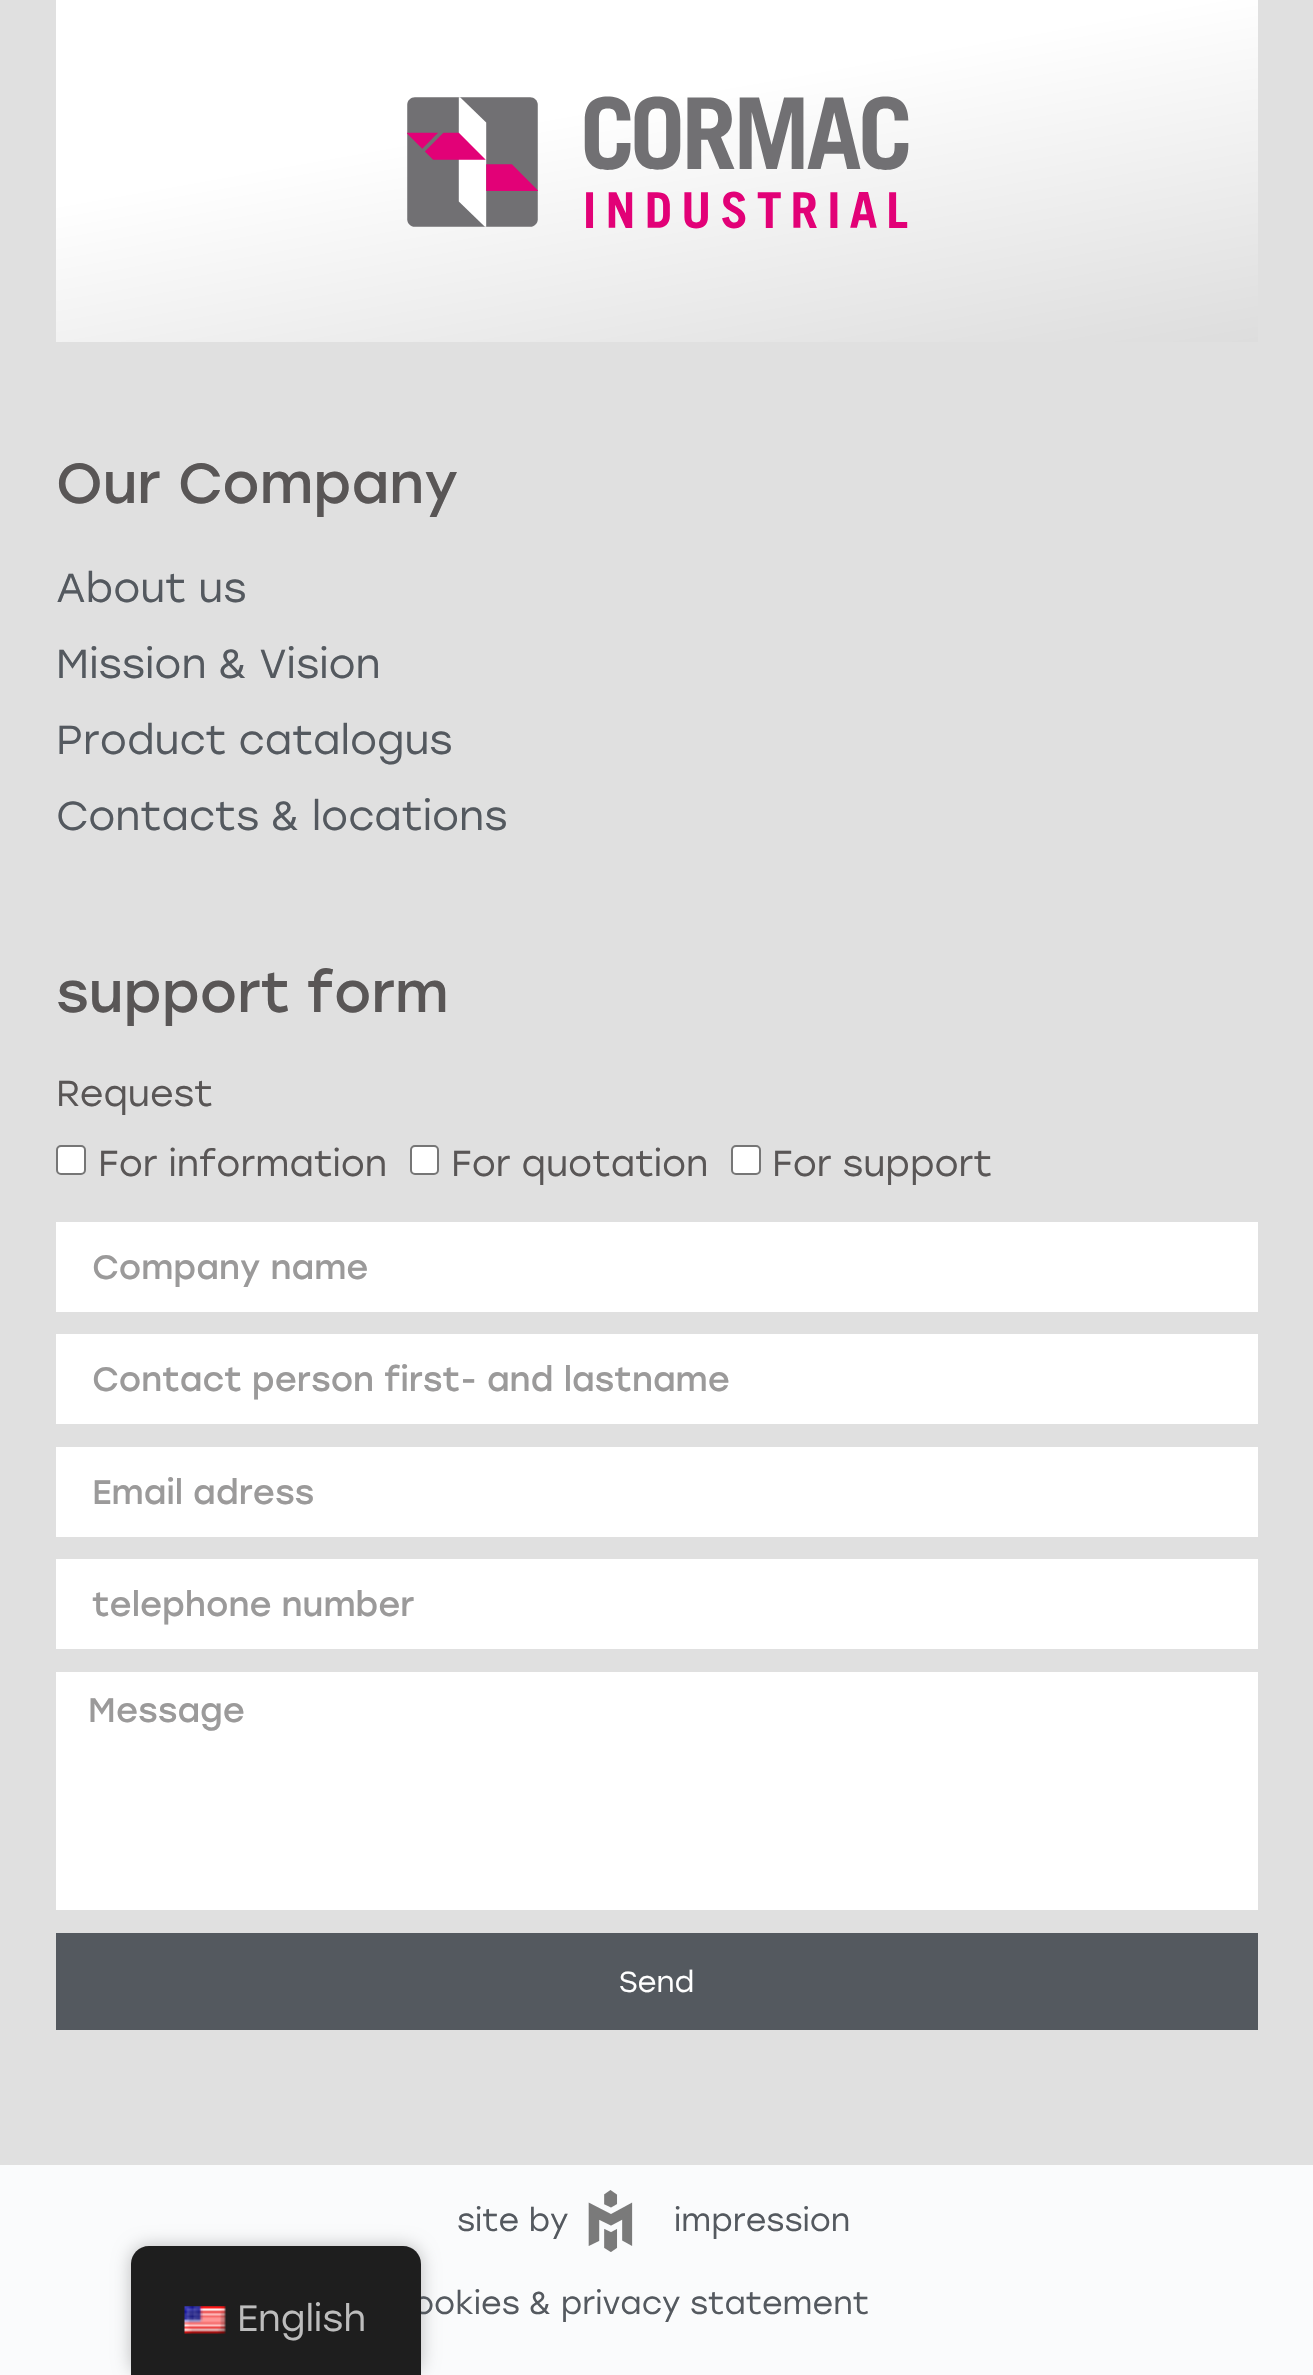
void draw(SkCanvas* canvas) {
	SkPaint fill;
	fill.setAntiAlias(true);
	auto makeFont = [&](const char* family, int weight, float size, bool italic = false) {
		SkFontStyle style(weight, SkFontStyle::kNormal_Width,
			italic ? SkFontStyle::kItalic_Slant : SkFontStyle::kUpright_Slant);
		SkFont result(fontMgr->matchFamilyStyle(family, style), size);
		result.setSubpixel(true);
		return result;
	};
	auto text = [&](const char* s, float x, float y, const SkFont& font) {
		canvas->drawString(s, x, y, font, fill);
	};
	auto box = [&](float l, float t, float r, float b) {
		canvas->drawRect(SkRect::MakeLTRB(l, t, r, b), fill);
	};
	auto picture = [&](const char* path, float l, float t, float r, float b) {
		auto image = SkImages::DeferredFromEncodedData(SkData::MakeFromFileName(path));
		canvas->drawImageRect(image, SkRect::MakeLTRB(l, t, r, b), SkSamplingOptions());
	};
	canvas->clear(0xFFE0E0E0);
	{
		const SkColor colors[] = {0xFFFFFFFF, 0xFFDDDDDD};
		const float stops[] = {0.37f, 1};
		const SkPoint ends[] = {{609, -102}, {705, 440}};
		fill.setShader(SkGradientShader::MakeLinear(ends, colors, stops, 2, SkTileMode::kClamp));
		fill.setAlpha(255);
	}
	box(56, 0, 1258, 342);
	picture("image0.png", 407, 96, 909, 229);
	fill.setShader(nullptr);
	fill.setColor(0xFFFFFFFF);
	canvas->drawRoundRect(SkRect::MakeLTRB(57, 1146, 85, 1174), 4, 4, fill);
	fill.setStyle(SkPaint::kStroke_Style);
	fill.setStrokeWidth(2);
	fill.setColor(0xFF767676);
	canvas->drawRoundRect(SkRect::MakeLTRB(57, 1146, 85, 1174), 4, 4, fill);
	fill.setStyle(SkPaint::kFill_Style);
	fill.setColor(0xFFFFFFFF);
	canvas->drawRoundRect(SkRect::MakeLTRB(411, 1146, 438, 1174), 4, 4, fill);
	fill.setStyle(SkPaint::kStroke_Style);
	fill.setColor(0xFF767676);
	canvas->drawRoundRect(SkRect::MakeLTRB(411, 1146, 438, 1174), 4, 4, fill);
	fill.setStyle(SkPaint::kFill_Style);
	fill.setColor(0xFFFFFFFF);
	canvas->drawRoundRect(SkRect::MakeLTRB(732, 1146, 760, 1174), 4, 4, fill);
	fill.setStyle(SkPaint::kStroke_Style);
	fill.setColor(0xFF767676);
	canvas->drawRoundRect(SkRect::MakeLTRB(732, 1146, 760, 1174), 4, 4, fill);
	fill.setStyle(SkPaint::kFill_Style);
	fill.setColor(0xFFFFFFFF);
	box(56, 1222, 1258, 1312);
	box(56, 1334, 1258, 1424);
	box(56, 1447, 1258, 1537);
	box(56, 1559, 1258, 1649);
	box(56, 1672, 1258, 1910);
	fill.setColor(0xFF54595F);
	box(56, 1933, 1258, 2030);
	fill.setColor(0xFFFAFBFC);
	box(0, 2165, 1313, 2375);
	picture("image1.png", 588, 2190, 633, 2252);
	fill.setColor(0x40000000);
	fill.setMaskFilter(SkMaskFilter::MakeBlur(kNormal_SkBlurStyle, 9));
	canvas->drawRoundRect(SkRect::MakeLTRB(131, 2246, 421, 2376), 18, 18, fill);
	fill.setMaskFilter(nullptr);
	auto font1 = makeFont("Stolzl", 400, 56.25f);
	fill.setColor(0xFF595656);
	text("Our Company", 56, 503, font1);
	auto font2 = makeFont("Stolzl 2", 400, 40.5f);
	fill.setColor(0xFF54595F);
	text("About us", 56, 602, font2);
	text("Mission & Vision", 56, 678, font2);
	text("Product catalogus", 56, 754, font2);
	text("Contacts & locations", 56, 830, font2);
	fill.setColor(0xFF595656);
	text("support form", 56, 1012, font1);
	auto font3 = makeFont("Stolzl 2", 400, 36);
	text("Request", 56, 1106, font3);
	text("For information", 98, 1176, font3);
	text("For quotation", 451, 1176, font3);
	text("For support", 772, 1176, font3);
	canvas->save();
	canvas->clipRect(SkRect::MakeLTRB(92, 1247, 1222, 1287));
	auto font4 = makeFont("Stolzl", 400, 33.75f);
	fill.setColor(0xFF9B9A9A);
	text("Company name", 92, 1279, font4);
	canvas->restore();
	text("Contact person first- and lastname", 92, 1391, font4);
	text("Email adress", 92, 1504, font4);
	text("telephone number", 92, 1616, font4);
	text("Message", 88, 1722, font4);
	auto font5 = makeFont("Stolzl 2", 400, 29);
	fill.setColor(0xFFFFFFFF);
	text("Send", 619, 1992, font5);
	auto font6 = makeFont("Stolzl 2", 400, 31.5f);
	fill.setColor(0xFF54595F);
	text("site by", 457, 2231, font6);
	text("impression", 674, 2231, font6);
	text("ookies & privacy statement", 413, 2314, font6);
	fill.setColor(0xFF1E1E1E);
	canvas->drawPath(SkPathBuilder().moveTo(149, 2246).lineTo(403, 2246).cubicTo(413, 2246, 421, 2254, 421, 2264).lineTo(421, 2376).lineTo(131, 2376).lineTo(131, 2264).cubicTo(131, 2254, 139, 2246, 149, 2246).close().detach(), fill);
	picture("image2.png", 184, 2306, 226, 2334);
	auto font7 = makeFont("Stolzl 2", 400, 36.5f);
	fill.setColor(0xFFBDBDBD);
	text("English", 237, 2331, font7);
}
